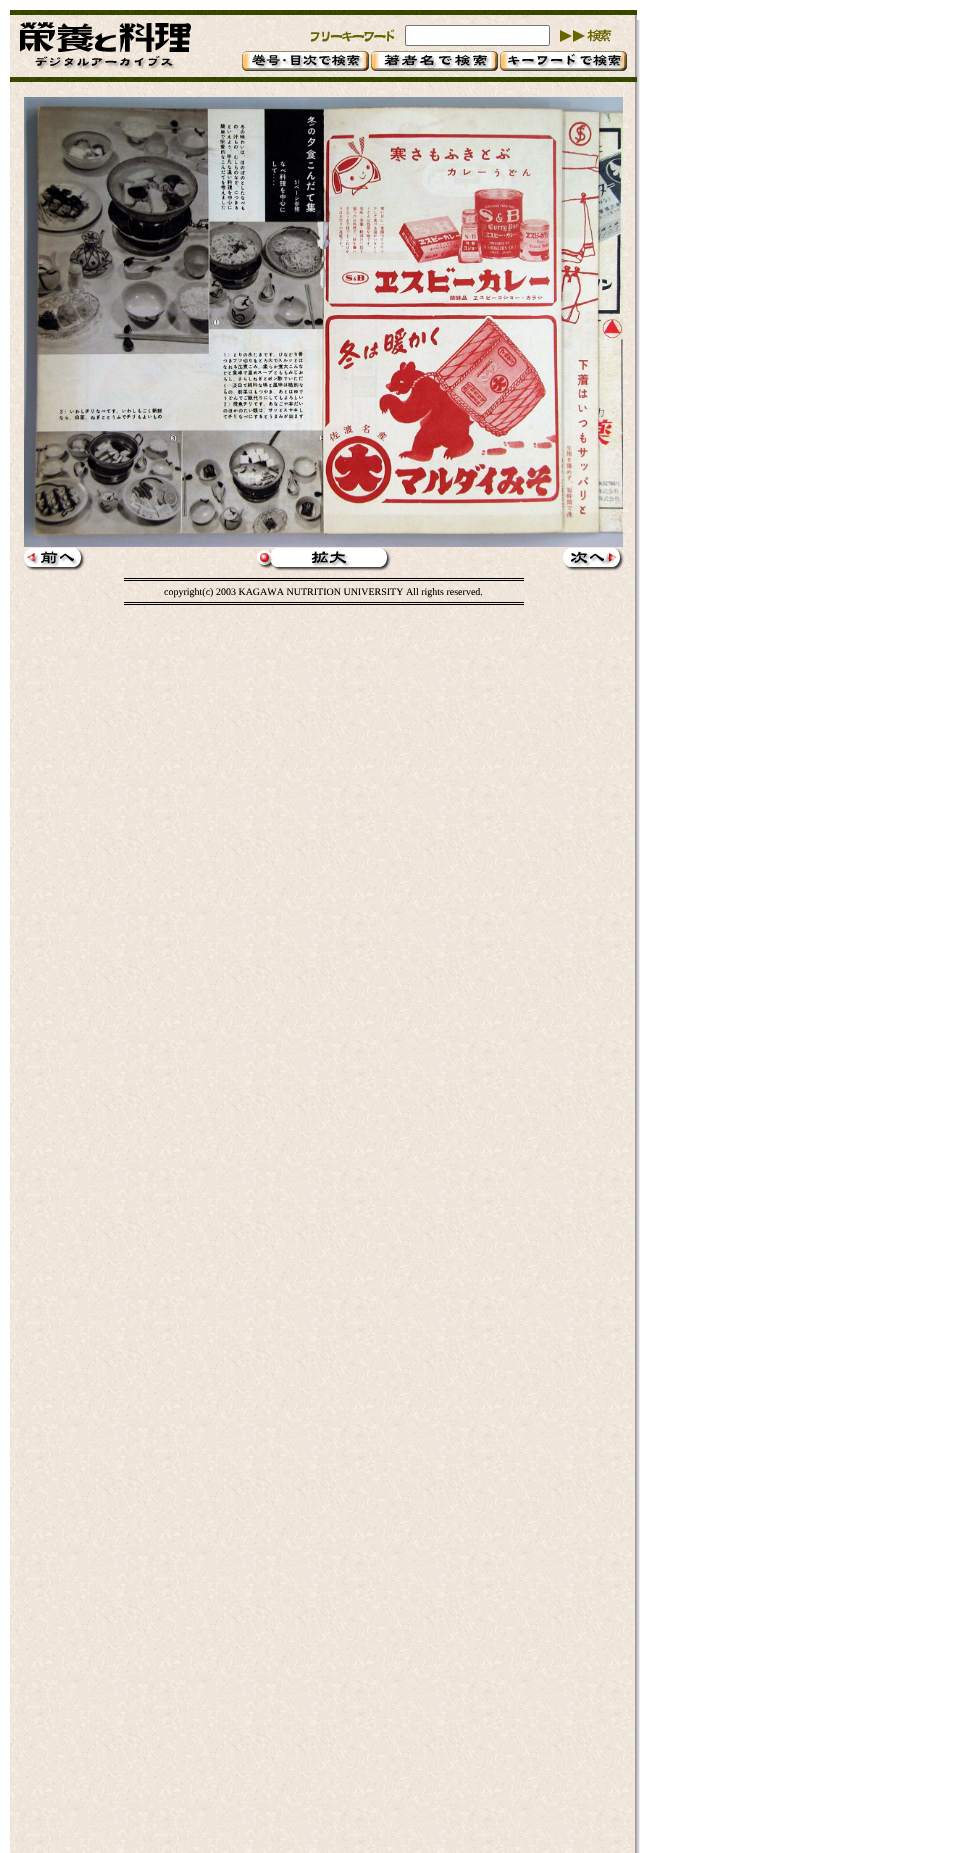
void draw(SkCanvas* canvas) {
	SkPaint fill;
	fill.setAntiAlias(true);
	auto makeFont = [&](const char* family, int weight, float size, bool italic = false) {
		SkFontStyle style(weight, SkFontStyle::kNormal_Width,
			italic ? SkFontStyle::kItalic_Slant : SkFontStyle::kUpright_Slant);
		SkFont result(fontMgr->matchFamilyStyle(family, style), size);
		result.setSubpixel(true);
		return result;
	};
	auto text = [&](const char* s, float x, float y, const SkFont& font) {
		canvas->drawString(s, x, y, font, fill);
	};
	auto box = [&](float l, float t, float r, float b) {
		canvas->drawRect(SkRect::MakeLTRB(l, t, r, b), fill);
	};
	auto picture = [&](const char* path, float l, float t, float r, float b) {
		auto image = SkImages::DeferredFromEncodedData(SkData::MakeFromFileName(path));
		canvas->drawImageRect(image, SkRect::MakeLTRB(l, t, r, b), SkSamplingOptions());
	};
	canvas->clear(0xFFFFFFFF);
	picture("image0.png", 10, 15, 640, 1853);
	fill.setColor(0xFFFFFFFF);
	box(637, 10, 640, 20);
	picture("image1.png", 10, 10, 637, 15);
	picture("image2.png", 20, 22, 191, 69);
	picture("image3.png", 310, 29, 395, 42);
	canvas->drawRoundRect(SkRect::MakeLTRB(405.5f, 25.5f, 549.5f, 45.5f), 1.5f, 1.5f, fill);
	fill.setStyle(SkPaint::kStroke_Style);
	fill.setStrokeWidth(1);
	fill.setColor(0xFF767676);
	canvas->drawRoundRect(SkRect::MakeLTRB(405.5f, 25.5f, 549.5f, 45.5f), 1.5f, 1.5f, fill);
	picture("image4.png", 560, 29, 612, 43);
	picture("image5.png", 242, 51, 369, 71);
	picture("image6.png", 371, 51, 498, 71);
	picture("image7.png", 500, 51, 627, 71);
	picture("image1.png", 10, 77, 637, 82);
	picture("image8.png", 24, 97, 623, 547);
	picture("image9.png", 24, 548, 85, 571);
	picture("image10.png", 257, 548, 391, 571);
	picture("image11.png", 563, 548, 624, 571);
	picture("image12.png", 124, 578, 524, 581);
	picture("image12.png", 124, 602, 524, 605);
	auto font1 = makeFont("Liberation Serif", 400, 10);
	fill.setStyle(SkPaint::kFill_Style);
	fill.setColor(0xFF000000);
	text("copyright(c) 2003 KAGAWA NUTRITION UNIVERSITY All rights reserved.", 164, 595, font1);
}
